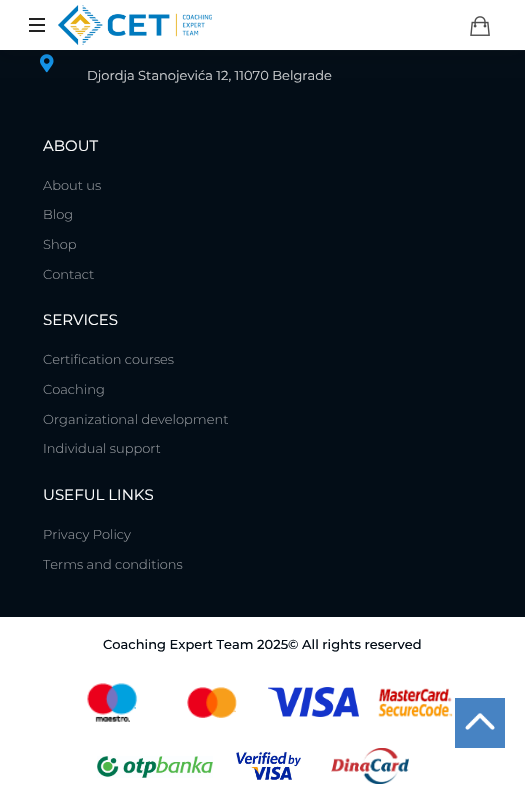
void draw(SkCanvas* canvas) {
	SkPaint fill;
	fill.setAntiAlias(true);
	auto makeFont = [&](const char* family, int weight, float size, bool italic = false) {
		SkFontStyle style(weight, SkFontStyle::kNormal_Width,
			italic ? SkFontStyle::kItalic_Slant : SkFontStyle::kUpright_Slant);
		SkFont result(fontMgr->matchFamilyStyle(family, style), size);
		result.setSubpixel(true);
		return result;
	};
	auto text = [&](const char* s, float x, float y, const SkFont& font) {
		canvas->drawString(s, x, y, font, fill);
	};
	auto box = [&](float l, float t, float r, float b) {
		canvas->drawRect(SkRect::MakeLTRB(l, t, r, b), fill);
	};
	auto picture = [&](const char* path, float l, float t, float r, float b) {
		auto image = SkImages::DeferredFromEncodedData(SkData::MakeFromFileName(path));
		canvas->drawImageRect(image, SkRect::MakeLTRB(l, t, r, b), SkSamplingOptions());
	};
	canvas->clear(0xFFFFFFFF);
	fill.setColor(0xFF030D17);
	box(0, 50, 525, 617);
	{
		const SkColor colors[] = {0x0A222222, 0x0AFFFFFF};
		const float stops[] = {0.3f, 1};
		const SkPoint ends[] = {{0, 26}, {525, 25}};
		fill.setShader(SkGradientShader::MakeLinear(ends, colors, stops, 2, SkTileMode::kClamp));
		fill.setAlpha(255);
	}
	box(205, 50, 525, 51);
	picture("image2.png", 40, 54, 54, 73);
	fill.setShader(nullptr);
	fill.setColor(0x1F111111);
	fill.setMaskFilter(SkMaskFilter::MakeBlur(kNormal_SkBlurStyle, 7.5f));
	canvas->drawRect(SkRect::MakeLTRB(0, 6, 525, 56), fill);
	fill.setMaskFilter(nullptr);
	fill.setColor(0xFFFFFFFF);
	box(0, 0, 525, 50);
	picture("image0.png", 58, 5, 212, 45);
	fill.setColor(0xFF222222);
	box(29, 24, 45, 26);
	box(29, 18, 45, 20);
	box(29, 30, 45, 32);
	picture("image1.png", 470, 16, 490, 36);
	picture("image3.png", 87, 683, 138, 722);
	picture("image4.png", 187, 687, 237, 718);
	picture("image5.png", 268, 687, 359, 717);
	picture("image6.png", 378, 688, 453, 717);
	picture("image7.png", 97, 756, 213, 778);
	picture("image8.png", 236, 751, 301, 780);
	picture("image9.png", 331, 748, 409, 784);
	picture("image10.png", 455, 698, 505, 748);
	auto font1 = makeFont("Montserrat", 400, 13);
	fill.setColor(0xFFCDCFD1);
	text("Djordja Stanojevića 12, 11070 Belgrade", 87, 80, font1);
	auto font2 = makeFont("Montserrat", 400, 15);
	fill.setColor(0xFFFFFFFF);
	text("ABOUT", 43, 151, font2);
	auto font3 = makeFont("Montserrat", 300, 13);
	fill.setColor(0xFF95999E);
	text("About us", 43, 190, font3);
	text("Blog", 43, 219, font3);
	text("Shop", 43, 249, font3);
	text("Contact", 43, 279, font3);
	fill.setColor(0xFFFFFFFF);
	text("SERVICES", 43, 325, font2);
	fill.setColor(0xFF95999E);
	text("Certification courses", 43, 364, font3);
	text("Coaching", 43, 394, font3);
	text("Organizational development", 43, 424, font3);
	text("Individual support", 43, 453, font3);
	fill.setColor(0xFFFFFFFF);
	text("USEFUL LINKS", 43, 500, font2);
	fill.setColor(0xFF95999E);
	text("Privacy Policy", 43, 539, font3);
	text("Terms and conditions", 43, 569, font3);
	auto font4 = makeFont("Montserrat", 500, 13);
	fill.setColor(0xFF030D17);
	text("Coaching Expert Team 2025© All rights reserved", 103, 649, font4);
}
